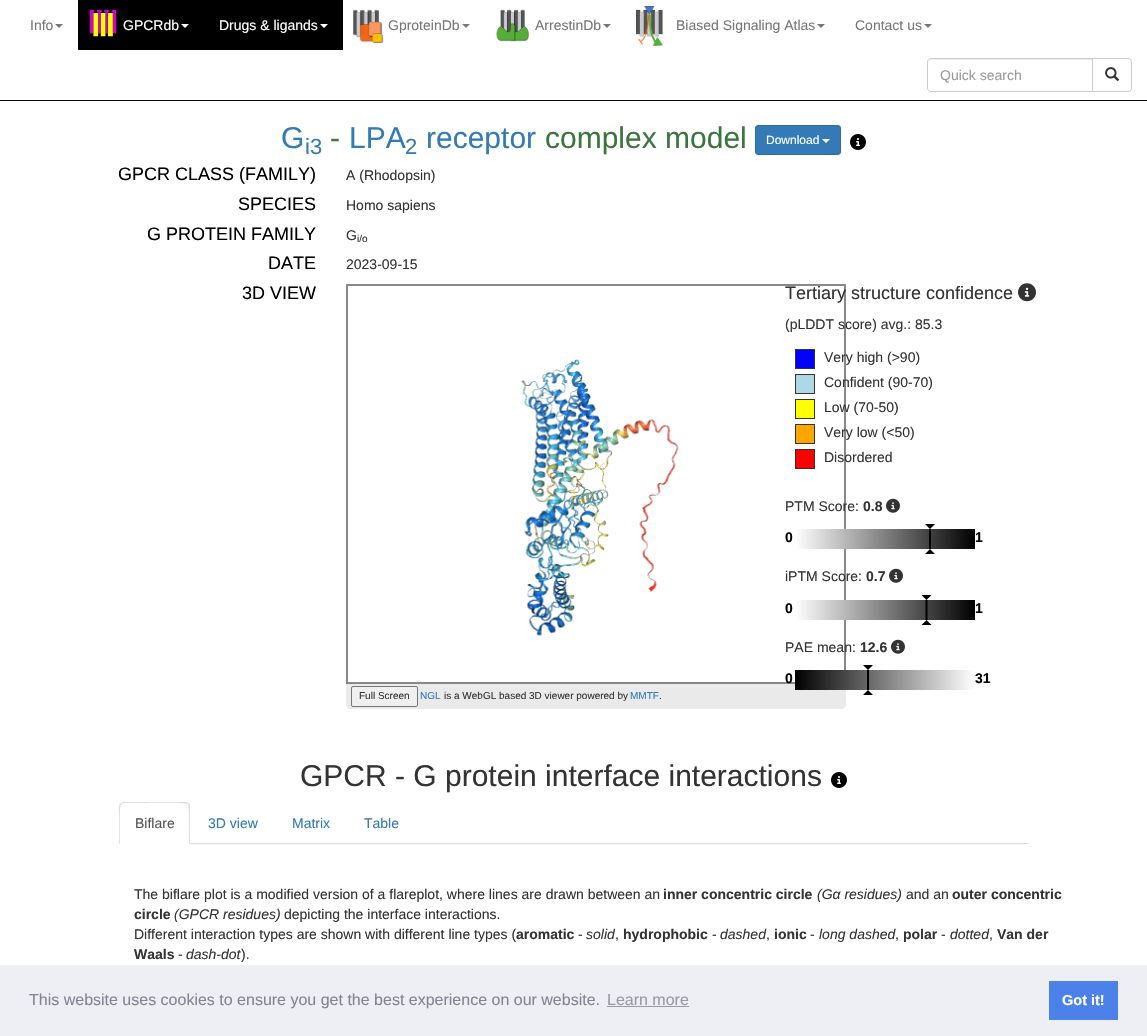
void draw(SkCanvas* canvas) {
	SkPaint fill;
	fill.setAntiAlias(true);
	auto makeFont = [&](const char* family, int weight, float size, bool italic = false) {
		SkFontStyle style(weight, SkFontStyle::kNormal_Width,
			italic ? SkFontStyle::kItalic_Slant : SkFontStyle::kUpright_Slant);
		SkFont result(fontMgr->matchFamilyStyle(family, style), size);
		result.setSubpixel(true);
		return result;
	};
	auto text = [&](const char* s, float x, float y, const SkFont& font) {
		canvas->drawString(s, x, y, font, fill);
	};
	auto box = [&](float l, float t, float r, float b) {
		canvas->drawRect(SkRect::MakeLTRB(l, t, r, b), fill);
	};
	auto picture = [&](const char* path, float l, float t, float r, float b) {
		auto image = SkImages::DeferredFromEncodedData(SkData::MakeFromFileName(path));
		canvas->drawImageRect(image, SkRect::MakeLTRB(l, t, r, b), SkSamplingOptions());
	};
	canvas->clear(0xFFFFFFFF);
	fill.setColor(0xFF080808);
	box(0, 100, 1147, 101);
	fill.setColor(0xFF777777);
	canvas->drawPath(SkPathBuilder().moveTo(55, 24).lineTo(63, 24).lineTo(59, 28).close().detach(), fill);
	fill.setColor(0xFF000000);
	box(78, 0, 343, 50);
	picture("image0.png", 89, 10, 117, 37);
	fill.setColor(0xFFFFFFFF);
	canvas->drawPath(SkPathBuilder().moveTo(181, 24).lineTo(189, 24).lineTo(185, 28).close().detach(), fill);
	canvas->drawPath(SkPathBuilder().moveTo(320, 24).lineTo(328, 24).lineTo(324, 28).close().detach(), fill);
	picture("image1.png", 353, 9, 383, 43);
	fill.setColor(0xFF777777);
	canvas->drawPath(SkPathBuilder().moveTo(462, 24).lineTo(470, 24).lineTo(466, 28).close().detach(), fill);
	picture("image2.png", 496, 9, 530, 42);
	canvas->drawPath(SkPathBuilder().moveTo(603, 24).lineTo(611, 24).lineTo(607, 28).close().detach(), fill);
	picture("image3.png", 636, 6, 663, 46);
	canvas->drawPath(SkPathBuilder().moveTo(817, 24).lineTo(825, 24).lineTo(821, 28).close().detach(), fill);
	canvas->drawPath(SkPathBuilder().moveTo(924, 24).lineTo(932, 24).lineTo(928, 28).close().detach(), fill);
	fill.setColor(0xFFECECEC);
	canvas->drawPath(SkPathBuilder().moveTo(931, 60).lineTo(1092, 60).lineTo(1092, 59).lineTo(931, 59).cubicTo(929, 59, 928, 61, 928, 63).cubicTo(928, 61, 929, 60, 931, 60).close().detach(), fill);
	fill.setStyle(SkPaint::kStroke_Style);
	fill.setStrokeWidth(1);
	fill.setColor(0xFFCCCCCC);
	canvas->drawPath(SkPathBuilder().moveTo(931, 58.5f).lineTo(1092.5f, 58.5f).lineTo(1092.5f, 91.5f).lineTo(931, 91.5f).cubicTo(929, 91.5f, 927.5f, 90, 927.5f, 88).lineTo(927.5f, 62).cubicTo(927.5f, 60, 929, 58.5f, 931, 58.5f).close().detach(), fill);
	fill.setStyle(SkPaint::kFill_Style);
	fill.setColor(0xFFFFFFFF);
	canvas->drawPath(SkPathBuilder().moveTo(1092.5f, 58.5f).lineTo(1128, 58.5f).cubicTo(1130, 58.5f, 1131.5f, 60, 1131.5f, 62).lineTo(1131.5f, 88).cubicTo(1131.5f, 90, 1130, 91.5f, 1128, 91.5f).lineTo(1092.5f, 91.5f).close().detach(), fill);
	fill.setStyle(SkPaint::kStroke_Style);
	fill.setColor(0xFFCCCCCC);
	canvas->drawPath(SkPathBuilder().moveTo(1092.5f, 58.5f).lineTo(1128, 58.5f).cubicTo(1130, 58.5f, 1131.5f, 60, 1131.5f, 62).lineTo(1131.5f, 88).cubicTo(1131.5f, 90, 1130, 91.5f, 1128, 91.5f).lineTo(1092.5f, 91.5f).close().detach(), fill);
	picture("image4.png", 1105, 67, 1120, 81);
	fill.setStyle(SkPaint::kFill_Style);
	fill.setColor(0xFF337AB7);
	canvas->drawRoundRect(SkRect::MakeLTRB(755.5f, 125.5f, 840.5f, 154.5f), 2.5f, 2.5f, fill);
	fill.setStyle(SkPaint::kStroke_Style);
	fill.setColor(0xFF2E6DA4);
	canvas->drawRoundRect(SkRect::MakeLTRB(755.5f, 125.5f, 840.5f, 154.5f), 2.5f, 2.5f, fill);
	fill.setStyle(SkPaint::kFill_Style);
	fill.setColor(0xFFFFFFFF);
	canvas->drawPath(SkPathBuilder().moveTo(822, 139).lineTo(830, 139).lineTo(826, 143).close().detach(), fill);
	picture("image5.png", 850, 134, 866, 150);
	picture("image6.png", 1018, 283, 1036, 302);
	fill.setStyle(SkPaint::kStroke_Style);
	fill.setStrokeWidth(2);
	fill.setColor(0xFF888888);
	canvas->drawRect(SkRect::MakeLTRB(347, 285, 845, 683), fill);
	fill.setStyle(SkPaint::kFill_Style);
	fill.setColor(0xFF0000FF);
	canvas->drawRect(SkRect::MakeLTRB(795.5f, 349.5f, 814.5f, 368.5f), fill);
	fill.setStyle(SkPaint::kStroke_Style);
	fill.setStrokeWidth(1);
	fill.setColor(0xFF333333);
	canvas->drawRect(SkRect::MakeLTRB(795.5f, 349.5f, 814.5f, 368.5f), fill);
	fill.setStyle(SkPaint::kFill_Style);
	fill.setColor(0xFFADD8E6);
	canvas->drawRect(SkRect::MakeLTRB(795.5f, 374.5f, 814.5f, 393.5f), fill);
	fill.setStyle(SkPaint::kStroke_Style);
	fill.setColor(0xFF333333);
	canvas->drawRect(SkRect::MakeLTRB(795.5f, 374.5f, 814.5f, 393.5f), fill);
	fill.setStyle(SkPaint::kFill_Style);
	fill.setColor(0xFFFFFF00);
	canvas->drawRect(SkRect::MakeLTRB(795.5f, 399.5f, 814.5f, 418.5f), fill);
	fill.setStyle(SkPaint::kStroke_Style);
	fill.setColor(0xFF333333);
	canvas->drawRect(SkRect::MakeLTRB(795.5f, 399.5f, 814.5f, 418.5f), fill);
	fill.setStyle(SkPaint::kFill_Style);
	fill.setColor(0xFFFFA500);
	canvas->drawRect(SkRect::MakeLTRB(795.5f, 424.5f, 814.5f, 443.5f), fill);
	fill.setStyle(SkPaint::kStroke_Style);
	fill.setColor(0xFF333333);
	canvas->drawRect(SkRect::MakeLTRB(795.5f, 424.5f, 814.5f, 443.5f), fill);
	fill.setStyle(SkPaint::kFill_Style);
	fill.setColor(0xFFFF0000);
	canvas->drawRect(SkRect::MakeLTRB(795.5f, 449.5f, 814.5f, 468.5f), fill);
	fill.setStyle(SkPaint::kStroke_Style);
	fill.setColor(0xFF333333);
	canvas->drawRect(SkRect::MakeLTRB(795.5f, 449.5f, 814.5f, 468.5f), fill);
	picture("image7.png", 886, 498, 900, 513);
	fill.setStyle(SkPaint::kFill_Style);
	{
		const SkColor colors[] = {0xFFFFFFFF, 0xFF000000};
		const float stops[] = {0, 1};
		const SkPoint ends[] = {{795, 529}, {975, 529}};
		fill.setShader(SkGradientShader::MakeLinear(ends, colors, stops, 2, SkTileMode::kClamp));
		fill.setAlpha(255);
	}
	box(797, 529, 975, 549);
	fill.setShader(nullptr);
	fill.setColor(0xFF000000);
	box(929, 529, 931, 549);
	canvas->drawPath(SkPathBuilder().moveTo(930, 529).lineTo(925, 524).lineTo(935, 524).close().moveTo(930, 549).lineTo(925, 554).lineTo(935, 554).close().detach(), fill);
	picture("image7.png", 889, 568, 903, 583);
	{
		const SkColor colors[] = {0xFFFFFFFF, 0xFF000000};
		const float stops[] = {0, 1};
		const SkPoint ends[] = {{795, 600}, {975, 600}};
		fill.setShader(SkGradientShader::MakeLinear(ends, colors, stops, 2, SkTileMode::kClamp));
		fill.setAlpha(255);
	}
	box(797, 600, 975, 620);
	fill.setStyle(SkPaint::kStroke_Style);
	fill.setStrokeWidth(2);
	fill.setShader(nullptr);
	fill.setColor(0xFF000000);
	canvas->drawPath(SkPathBuilder().moveTo(926.5f, 600).lineTo(926.5f, 620).detach(), fill);
	fill.setStyle(SkPaint::kFill_Style);
	canvas->drawPath(SkPathBuilder().moveTo(926.5f, 600).lineTo(921.5f, 595).lineTo(931.5f, 595).close().moveTo(926.5f, 620).lineTo(921.5f, 625).lineTo(931.5f, 625).close().detach(), fill);
	picture("image7.png", 891, 639, 905, 654);
	fill.setColor(0xFFEAEAEA);
	canvas->drawPath(SkPathBuilder().moveTo(346, 684).lineTo(846, 684).lineTo(846, 704).cubicTo(846, 707, 844, 709, 841, 709).lineTo(351, 709).cubicTo(348, 709, 346, 707, 346, 704).close().detach(), fill);
	{
		const SkColor colors[] = {0xFF000000, 0xFFFFFFFF};
		const float stops[] = {0, 1};
		const SkPoint ends[] = {{795, 670}, {975, 670}};
		fill.setShader(SkGradientShader::MakeLinear(ends, colors, stops, 2, SkTileMode::kClamp));
		fill.setAlpha(255);
	}
	box(795, 670, 973, 690);
	fill.setShader(nullptr);
	fill.setColor(0xFF000000);
	box(867, 670, 869, 690);
	canvas->drawPath(SkPathBuilder().moveTo(868, 670).lineTo(863, 665).lineTo(873, 665).close().moveTo(868, 690).lineTo(863, 695).lineTo(873, 695).close().detach(), fill);
	picture("image8.png", 521, 359, 679, 636);
	fill.setColor(0xFFEFEFEF);
	canvas->drawRoundRect(SkRect::MakeLTRB(351.5f, 686.5f, 417.5f, 706.5f), 1.5f, 1.5f, fill);
	fill.setStyle(SkPaint::kStroke_Style);
	fill.setStrokeWidth(1);
	fill.setColor(0xFF767676);
	canvas->drawRoundRect(SkRect::MakeLTRB(351.5f, 686.5f, 417.5f, 706.5f), 1.5f, 1.5f, fill);
	picture("image5.png", 831, 772, 847, 788);
	fill.setStyle(SkPaint::kFill_Style);
	fill.setColor(0xFFDDDDDD);
	box(190, 843, 1029, 844);
	canvas->drawPath(SkPathBuilder().moveTo(123, 802).lineTo(120, 803).lineTo(121, 804).lineTo(123, 803).lineTo(134, 803).cubicTo(140, 803, 186, 802, 188, 804).lineTo(189, 803).lineTo(186, 802).close().detach(), fill);
	canvas->drawPath(SkPathBuilder().moveTo(190, 844).lineTo(190, 806).cubicTo(190, 805, 190, 804, 189, 803).lineTo(188, 804).cubicTo(190, 806, 189, 838, 189, 843).close().detach(), fill);
	canvas->drawPath(SkPathBuilder().moveTo(119, 844).lineTo(120, 843).cubicTo(120, 838, 119, 806, 121, 804).lineTo(120, 803).lineTo(119, 806).close().detach(), fill);
	fill.setColor(0xFFEDEFF5);
	box(0, 965, 1147, 1036);
	fill.setColor(0xFF9899A5);
	box(607, 1006, 689, 1007);
	fill.setColor(0xFF4B81E8);
	box(1049, 981, 1118, 1020);
	auto font1 = makeFont("Liberation Sans", 400, 14);
	fill.setColor(0xFF777777);
	text("Info", 30, 30, font1);
	fill.setColor(0xFFFFFFFF);
	text("GPCRdb", 123, 30, font1);
	text("Drugs & ligands", 219, 30, font1);
	fill.setColor(0xFF777777);
	text("GproteinDb", 388, 30, font1);
	text("ArrestinDb", 535, 30, font1);
	text("Biased Signaling Atlas", 676, 30, font1);
	text("Contact us", 855, 30, font1);
	fill.setColor(0xFF999999);
	text("Quick search", 940, 80, font1);
	auto font2 = makeFont("Liberation Sans", 400, 30);
	fill.setColor(0xFF337AB7);
	text("G", 281, 148, font2);
	auto font3 = makeFont("Liberation Sans", 400, 22);
	text("i3", 305, 154, font3);
	fill.setColor(0xFF3C763D);
	text("-", 330, 148, font2);
	fill.setColor(0xFF337AB7);
	text("LPA", 349, 148, font2);
	text("2", 405, 154, font3);
	text("receptor", 426, 148, font2);
	fill.setColor(0xFF3C763D);
	text("complex model", 545, 148, font2);
	auto font4 = makeFont("Liberation Sans", 400, 12);
	fill.setColor(0xFFFFFFFF);
	text("Download", 766, 144, font4);
	auto font5 = makeFont("Liberation Sans", 400, 18);
	fill.setColor(0xFF000000);
	text("GPCR CLASS (FAMILY)", 118, 180, font5);
	fill.setColor(0xFF333333);
	text("A (Rhodopsin)", 346, 180, font1);
	fill.setColor(0xFF000000);
	text("SPECIES", 238, 210, font5);
	fill.setColor(0xFF333333);
	text("Homo sapiens", 346, 210, font1);
	fill.setColor(0xFF000000);
	text("G PROTEIN FAMILY", 147, 240, font5);
	fill.setColor(0xFF333333);
	text("G", 346, 240, font1);
	auto font6 = makeFont("Liberation Sans", 400, 10);
	text("i/o", 357, 242, font6);
	fill.setColor(0xFF000000);
	text("DATE", 268, 269, font5);
	fill.setColor(0xFF333333);
	text("2023-09-15", 346, 269, font1);
	fill.setColor(0xFF000000);
	text("3D VIEW", 242, 299, font5);
	fill.setColor(0xFF333333);
	text("Tertiary structure confidence", 785, 299, font5);
	text("(pLDDT score) avg.: 85.3", 785, 329, font1);
	text("Very high (>90)", 824, 362, font1);
	text("Confident (90-70)", 824, 387, font1);
	text("Low (70-50)", 824, 412, font1);
	text("Very low (<50)", 824, 437, font1);
	text("Disordered", 824, 462, font1);
	text("PTM Score:", 785, 511, font1);
	auto font7 = makeFont("Liberation Sans", 700, 14);
	text("0.8", 863, 511, font7);
	fill.setColor(0xFF000000);
	text("0", 785, 542, font7);
	text("1", 975, 542, font7);
	fill.setColor(0xFF333333);
	text("iPTM Score:", 785, 581, font1);
	text("0.7", 866, 581, font7);
	fill.setColor(0xFF000000);
	text("0", 785, 613, font7);
	text("1", 975, 613, font7);
	fill.setColor(0xFF333333);
	text("PAE mean:", 785, 652, font1);
	text("12.6", 860, 652, font7);
	fill.setColor(0xFF000000);
	text("0", 785, 683, font7);
	text("31", 975, 683, font7);
	fill.setColor(0xFF333333);
	text("Full Screen", 359, 699, font6);
	fill.setColor(0xFF337AB7);
	text("NGL", 420, 699, font6);
	fill.setColor(0xFF333333);
	text("is a WebGL based 3D viewer powered by", 444, 699, font6);
	fill.setColor(0xFF337AB7);
	text("MMTF", 630, 699, font6);
	fill.setColor(0xFF333333);
	text(".", 659, 699, font6);
	text("GPCR - G protein interface interactions", 300, 786, font2);
	fill.setColor(0xFF555555);
	text("Biflare", 135, 828, font1);
	fill.setColor(0xFF337AB7);
	text("3D view", 208, 828, font1);
	text("Matrix", 292, 828, font1);
	text("Table", 364, 828, font1);
	fill.setColor(0xFF333333);
	text("The biflare plot is a modified version of a flareplot, where lines are drawn between an", 134, 899, font1);
	text("inner concentric circle", 663, 899, font7);
	auto font8 = makeFont("Liberation Sans", 400, 14, true);
	text("(Gα residues)", 817, 899, font8);
	text("and an", 906, 899, font1);
	text("outer concentric", 952, 899, font7);
	text("circle", 134, 919, font7);
	text("(GPCR residues)", 174, 919, font8);
	text("depicting the interface interactions.", 284, 919, font1);
	text("Different interaction types are shown with different line types (", 134, 939, font1);
	text("aromatic", 516, 939, font7);
	text("-", 578, 939, font1);
	text("solid", 586, 939, font8);
	text("hydrophobic", 623, 939, font7);
	text("-", 712, 939, font1);
	text("dashed", 720, 939, font8);
	text("ionic", 774, 939, font7);
	text("-", 810, 939, font1);
	text("long dashed", 819, 939, font8);
	text("polar", 903, 939, font7);
	text("-", 941, 939, font1);
	text("dotted", 950, 939, font8);
	text("Van der", 997, 939, font7);
	text(",", 615, 939, font1);
	text(",", 766, 939, font1);
	text(",", 895, 939, font1);
	text(",", 989, 939, font1);
	text("Waals", 134, 959, font7);
	text("-", 178, 959, font1);
	text("dash-dot", 186, 959, font8);
	text(").", 241, 959, font1);
	auto font9 = makeFont("Liberation Sans", 400, 16);
	fill.setColor(0xFF838391);
	text("This website uses cookies to ensure you get the best experience on our website.", 29, 1005, font9);
	fill.setColor(0xFF9899A5);
	text("Learn more", 607, 1005, font9);
	auto font10 = makeFont("Liberation Sans", 700, 14.5f);
	fill.setColor(0xFFFFFFFF);
	text("Got it!", 1062, 1005, font10);
}
